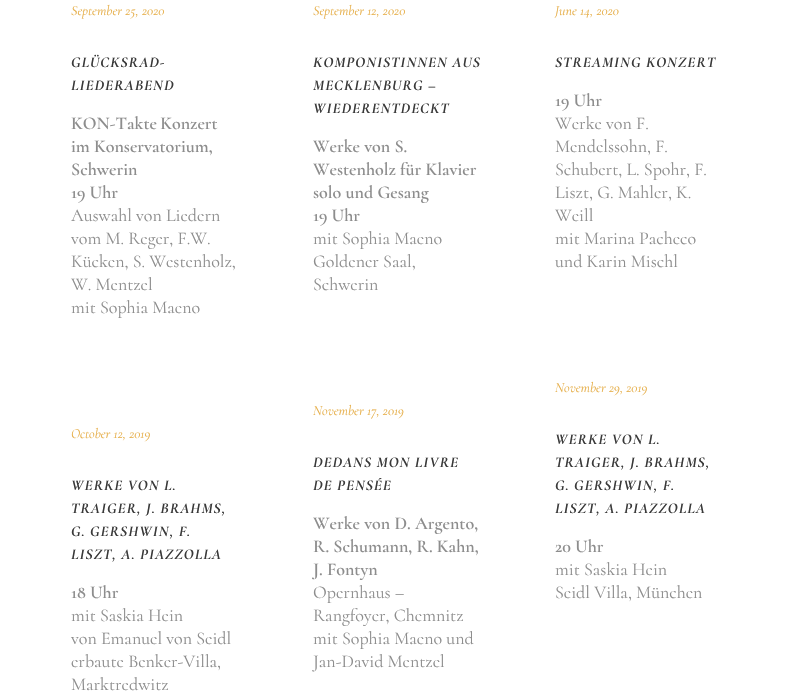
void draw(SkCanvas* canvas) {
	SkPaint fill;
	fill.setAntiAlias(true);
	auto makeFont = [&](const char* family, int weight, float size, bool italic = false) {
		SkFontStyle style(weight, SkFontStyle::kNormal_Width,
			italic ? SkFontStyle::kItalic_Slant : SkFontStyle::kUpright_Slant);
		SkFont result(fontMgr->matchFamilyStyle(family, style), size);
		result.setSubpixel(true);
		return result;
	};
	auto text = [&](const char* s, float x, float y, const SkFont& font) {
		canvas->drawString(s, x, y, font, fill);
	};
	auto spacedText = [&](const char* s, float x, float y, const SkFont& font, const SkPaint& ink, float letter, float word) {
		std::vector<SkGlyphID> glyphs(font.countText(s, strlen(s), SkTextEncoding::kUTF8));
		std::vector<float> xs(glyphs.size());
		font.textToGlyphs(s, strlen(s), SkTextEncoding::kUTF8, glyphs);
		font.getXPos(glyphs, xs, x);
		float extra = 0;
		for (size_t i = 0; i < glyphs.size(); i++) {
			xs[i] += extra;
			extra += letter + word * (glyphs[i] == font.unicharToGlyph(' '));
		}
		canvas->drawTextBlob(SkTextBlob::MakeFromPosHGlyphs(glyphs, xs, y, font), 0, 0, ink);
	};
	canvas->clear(0xFFFFFFFF);
	auto font1 = makeFont("Cormorant", 400, 14, true);
	fill.setColor(0xFFE6AE48);
	text("September 25, 2020", 71, 15, font1);
	auto font2 = makeFont("Cormorant Garamond", 700, 15, true);
	fill.setColor(0xFF393939);
	spacedText("GLÜCKSRAD-", 71, 67, font2, fill, 1, 0);
	spacedText("LIEDERABEND", 71, 90, font2, fill, 1, 0);
	auto font3 = makeFont("Cormorant", 600, 18);
	fill.setColor(0xFF8D8D8D);
	spacedText("KON-Takte Konzert", 71, 129, font3, fill, 0, -1);
	text("im Konservatorium,", 71, 152, font3);
	text("Schwerin", 71, 175, font3);
	text("19 Uhr", 71, 198, font3);
	auto font4 = makeFont("Cormorant", 400, 18);
	text("Auswahl von Liedern", 71, 221, font4);
	text("vom M. Reger, F.W.", 71, 244, font4);
	text("Kücken, S. Westenholz,", 71, 267, font4);
	text("W. Mentzel", 71, 290, font4);
	text("mit Sophia Maeno", 71, 313, font4);
	fill.setColor(0xFFE6AE48);
	text("September 12, 2020", 313, 15, font1);
	fill.setColor(0xFF393939);
	spacedText("KOMPONISTINNEN AUS", 313, 67, font2, fill, 1, 0);
	spacedText("MECKLENBURG –", 313, 90, font2, fill, 1, 0);
	spacedText("WIEDERENTDECKT", 313, 113, font2, fill, 1, 0);
	fill.setColor(0xFF8D8D8D);
	text("Werke von S.", 313, 152, font3);
	text("Westenholz für Klavier", 313, 175, font3);
	text("solo und Gesang", 313, 198, font3);
	text("19 Uhr", 313, 221, font3);
	text("mit Sophia Maeno", 313, 244, font4);
	text("Goldener Saal,", 313, 267, font4);
	text("Schwerin", 313, 290, font4);
	fill.setColor(0xFFE6AE48);
	text("June 14, 2020", 555, 15, font1);
	fill.setColor(0xFF393939);
	spacedText("STREAMING KONZERT", 555, 67, font2, fill, 1, 0);
	fill.setColor(0xFF8D8D8D);
	text("19 Uhr", 555, 106, font3);
	text("Werke von F.", 555, 129, font4);
	text("Mendelssohn, F.", 555, 152, font4);
	text("Schubert, L. Spohr, F.", 555, 175, font4);
	text("Liszt, G. Mahler, K.", 555, 198, font4);
	text("Weill", 555, 221, font4);
	text("mit Marina Pacheco", 555, 244, font4);
	text("und Karin Mischl", 555, 267, font4);
	fill.setColor(0xFFE6AE48);
	text("October 12, 2019", 71, 438, font1);
	fill.setColor(0xFF393939);
	spacedText("WERKE VON L.", 71, 490, font2, fill, 1, 0);
	spacedText("TRAIGER, J. BRAHMS,", 71, 513, font2, fill, 1, 0);
	spacedText("G. GERSHWIN, F.", 71, 536, font2, fill, 1, 0);
	spacedText("LISZT, A. PIAZZOLLA", 71, 559, font2, fill, 1, 0);
	fill.setColor(0xFF8D8D8D);
	text("18 Uhr", 71, 598, font3);
	text("mit Saskia Hein", 71, 621, font4);
	text("von Emanuel von Seidl", 71, 644, font4);
	text("erbaute Benker-Villa,", 71, 667, font4);
	text("Marktredwitz", 71, 690, font4);
	fill.setColor(0xFFE6AE48);
	text("November 17, 2019", 313, 415, font1);
	fill.setColor(0xFF393939);
	spacedText("DEDANS MON LIVRE", 313, 467, font2, fill, 1, 0);
	spacedText("DE PENSÉE", 313, 490, font2, fill, 1, 0);
	fill.setColor(0xFF8D8D8D);
	text("Werke von D. Argento,", 313, 529, font3);
	text("R. Schumann, R. Kahn,", 313, 552, font3);
	text("J. Fontyn", 313, 575, font3);
	text("Opernhaus –", 313, 598, font4);
	text("Rangfoyer, Chemnitz", 313, 621, font4);
	text("mit Sophia Maeno und", 313, 644, font4);
	text("Jan-David Mentzel", 313, 667, font4);
	fill.setColor(0xFFE6AE48);
	text("November 29, 2019", 555, 392, font1);
	fill.setColor(0xFF393939);
	spacedText("WERKE VON L.", 555, 444, font2, fill, 1, 0);
	spacedText("TRAIGER, J. BRAHMS,", 555, 467, font2, fill, 1, 0);
	spacedText("G. GERSHWIN, F.", 555, 490, font2, fill, 1, 0);
	spacedText("LISZT, A. PIAZZOLLA", 555, 513, font2, fill, 1, 0);
	fill.setColor(0xFF8D8D8D);
	text("20 Uhr", 555, 552, font3);
	text("mit Saskia Hein", 555, 575, font4);
	text("Seidl Villa, München", 555, 598, font4);
}
